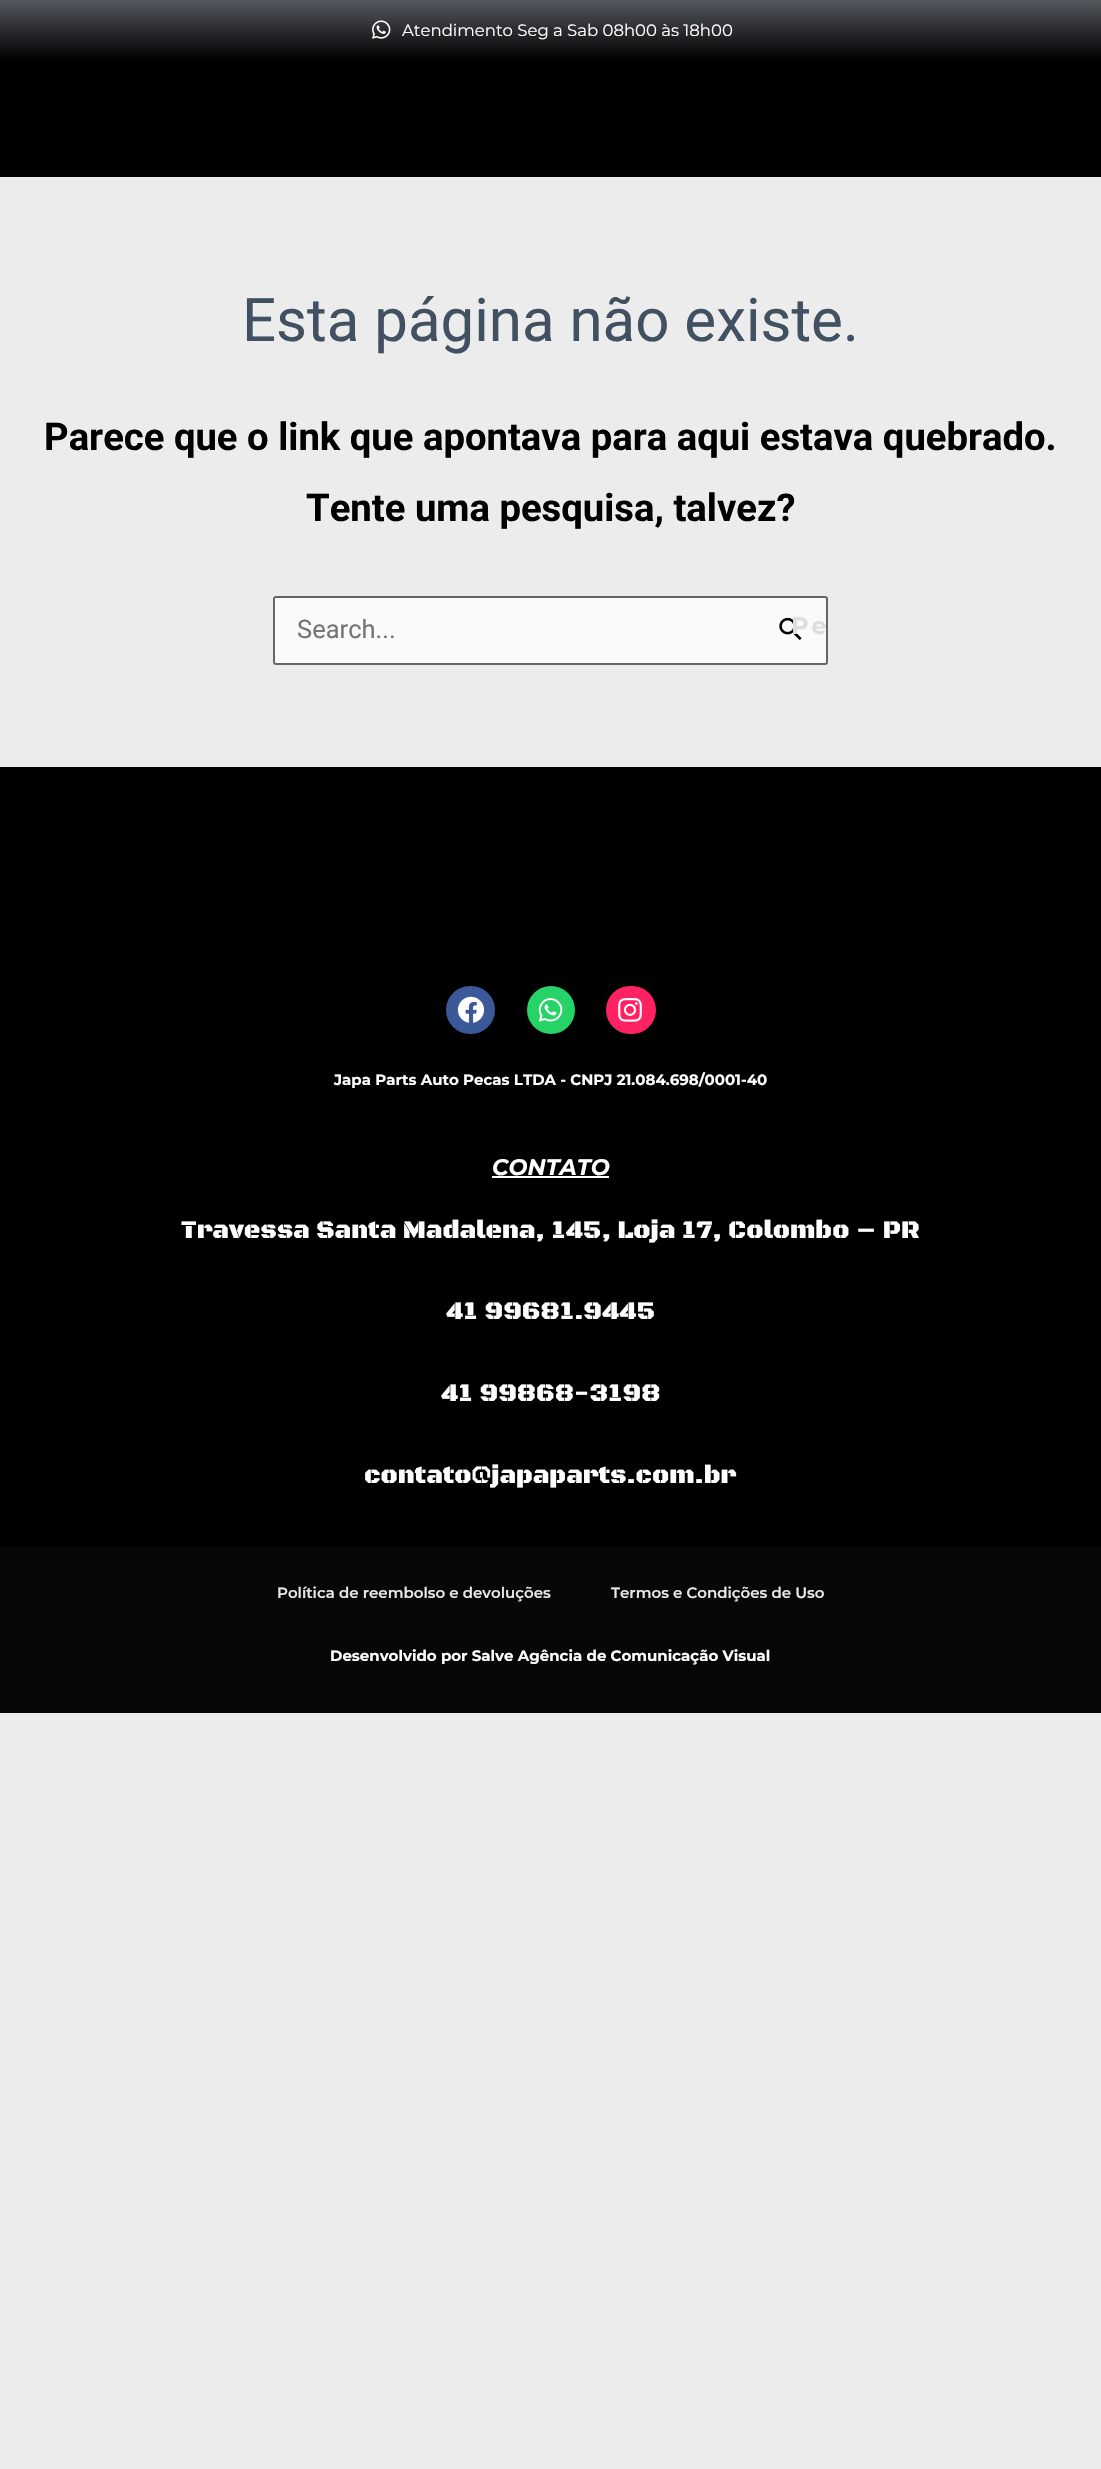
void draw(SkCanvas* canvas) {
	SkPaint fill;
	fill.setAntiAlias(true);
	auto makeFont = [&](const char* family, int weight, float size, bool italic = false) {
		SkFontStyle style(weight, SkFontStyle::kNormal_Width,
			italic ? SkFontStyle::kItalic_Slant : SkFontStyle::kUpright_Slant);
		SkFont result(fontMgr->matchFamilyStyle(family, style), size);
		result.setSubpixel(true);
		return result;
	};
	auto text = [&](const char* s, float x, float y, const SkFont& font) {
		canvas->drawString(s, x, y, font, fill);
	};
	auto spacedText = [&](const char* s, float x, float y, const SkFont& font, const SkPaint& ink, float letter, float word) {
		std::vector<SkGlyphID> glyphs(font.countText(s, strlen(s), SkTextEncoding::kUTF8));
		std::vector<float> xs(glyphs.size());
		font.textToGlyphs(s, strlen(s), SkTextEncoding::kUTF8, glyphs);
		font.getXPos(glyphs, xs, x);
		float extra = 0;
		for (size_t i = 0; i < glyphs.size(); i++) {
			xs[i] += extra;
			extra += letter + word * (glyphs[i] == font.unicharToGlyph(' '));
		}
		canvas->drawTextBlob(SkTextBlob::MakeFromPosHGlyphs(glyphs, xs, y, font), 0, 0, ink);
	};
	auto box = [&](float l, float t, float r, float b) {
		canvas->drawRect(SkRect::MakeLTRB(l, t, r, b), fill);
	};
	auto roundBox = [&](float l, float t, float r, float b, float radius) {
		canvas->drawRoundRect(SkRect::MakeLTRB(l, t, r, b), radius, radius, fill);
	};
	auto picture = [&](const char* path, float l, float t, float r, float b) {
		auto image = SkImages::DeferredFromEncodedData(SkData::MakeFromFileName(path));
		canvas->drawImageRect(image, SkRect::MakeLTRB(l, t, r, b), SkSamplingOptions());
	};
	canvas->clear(0xFFECECEC);
	{
		const SkColor colors[] = {0xFF54595F, 0xFF000000};
		const float stops[] = {0, 1};
		const SkPoint ends[] = {{551, 0}, {551, 60}};
		fill.setShader(SkGradientShader::MakeLinear(ends, colors, stops, 2, SkTileMode::kClamp));
		fill.setAlpha(255);
	}
	box(0, 0, 1101, 60);
	picture("image0.png", 372, 20, 391, 39);
	fill.setShader(nullptr);
	fill.setColor(0xFF000000);
	box(0, 60, 1101, 177);
	fill.setColor(0xFFFAFAFA);
	canvas->drawRoundRect(SkRect::MakeLTRB(274, 597, 827, 664), 2, 2, fill);
	fill.setStyle(SkPaint::kStroke_Style);
	fill.setStrokeWidth(2);
	fill.setColor(0xFF666666);
	canvas->drawRoundRect(SkRect::MakeLTRB(274, 597, 827, 664), 2, 2, fill);
	picture("image1.png", 779, 617, 802, 640);
	fill.setStyle(SkPaint::kFill_Style);
	fill.setColor(0xFF000000);
	box(0, 767, 1101, 1547);
	fill.setColor(0xFF3B5998);
	roundBox(446, 986, 495, 1034, 24);
	picture("image2.png", 457, 996, 485, 1023);
	fill.setColor(0xFF25D366);
	canvas->drawCircle(551, 1010, 24, fill);
	picture("image3.png", 538, 998, 563, 1022);
	fill.setColor(0xFFFF2263);
	roundBox(606, 986, 656, 1034, 24);
	picture("image4.png", 618, 998, 642, 1022);
	fill.setColor(0xFFFFFFFF);
	box(492, 1176, 609, 1178);
	fill.setColor(0xFF070707);
	box(0, 1547, 1101, 1713);
	auto font1 = makeFont("Montserrat", 400, 16.5f);
	fill.setColor(0xFFFFFFFF);
	text("Atendimento Seg a Sab 08h00 às 18h00", 402, 36, font1);
	auto font2 = makeFont("Roboto", 400, 60);
	fill.setColor(0xFF415161);
	text("Esta página não existe.", 242, 341, font2);
	auto font3 = makeFont("Roboto", 700, 38.25f);
	fill.setColor(0xFF000000);
	text("Parece que o link que apontava para aqui estava quebrado.", 44, 450, font3);
	text("Tente uma pesquisa, talvez?", 306, 521, font3);
	auto font4 = makeFont("Roboto", 400, 25.5f);
	fill.setColor(0xFF757575);
	text("Search...", 297, 638, font4);
	auto font5 = makeFont("Montserrat", 700, 24);
	fill.setColor(0xFFDDDDDD);
	spacedText("Pe", 791, 634, font5, fill, 3, 0);
	auto font6 = makeFont("Montserrat", 700, 15);
	fill.setColor(0xFFFFFFFF);
	text("Japa Parts Auto Pecas LTDA - CNPJ 21.084.698/0001-40", 334, 1085, font6);
	auto font7 = makeFont("Montserrat", 700, 22.5f, true);
	text("CONTATO", 492, 1175, font7);
	auto font8 = makeFont("Black Ops One", 900, 25.5f);
	text("Travessa Santa Madalena, 145, Loja 17, Colombo – PR", 181, 1238, font8);
	text("41 99681.9445", 446, 1319, font8);
	text("41 99868-3198", 441, 1401, font8);
	text("contato@japaparts.com.br", 364, 1483, font8);
	auto font9 = makeFont("Montserrat", 600, 15);
	fill.setColor(0xFFE7E7E7);
	text("Política de reembolso e devoluções", 277, 1598, font9);
	text("Termos e Condições de Uso", 611, 1598, font9);
	fill.setColor(0xFFFFFFFF);
	text("Desenvolvido por Salve Agência de Comunicação Visual", 330, 1661, font6);
}
